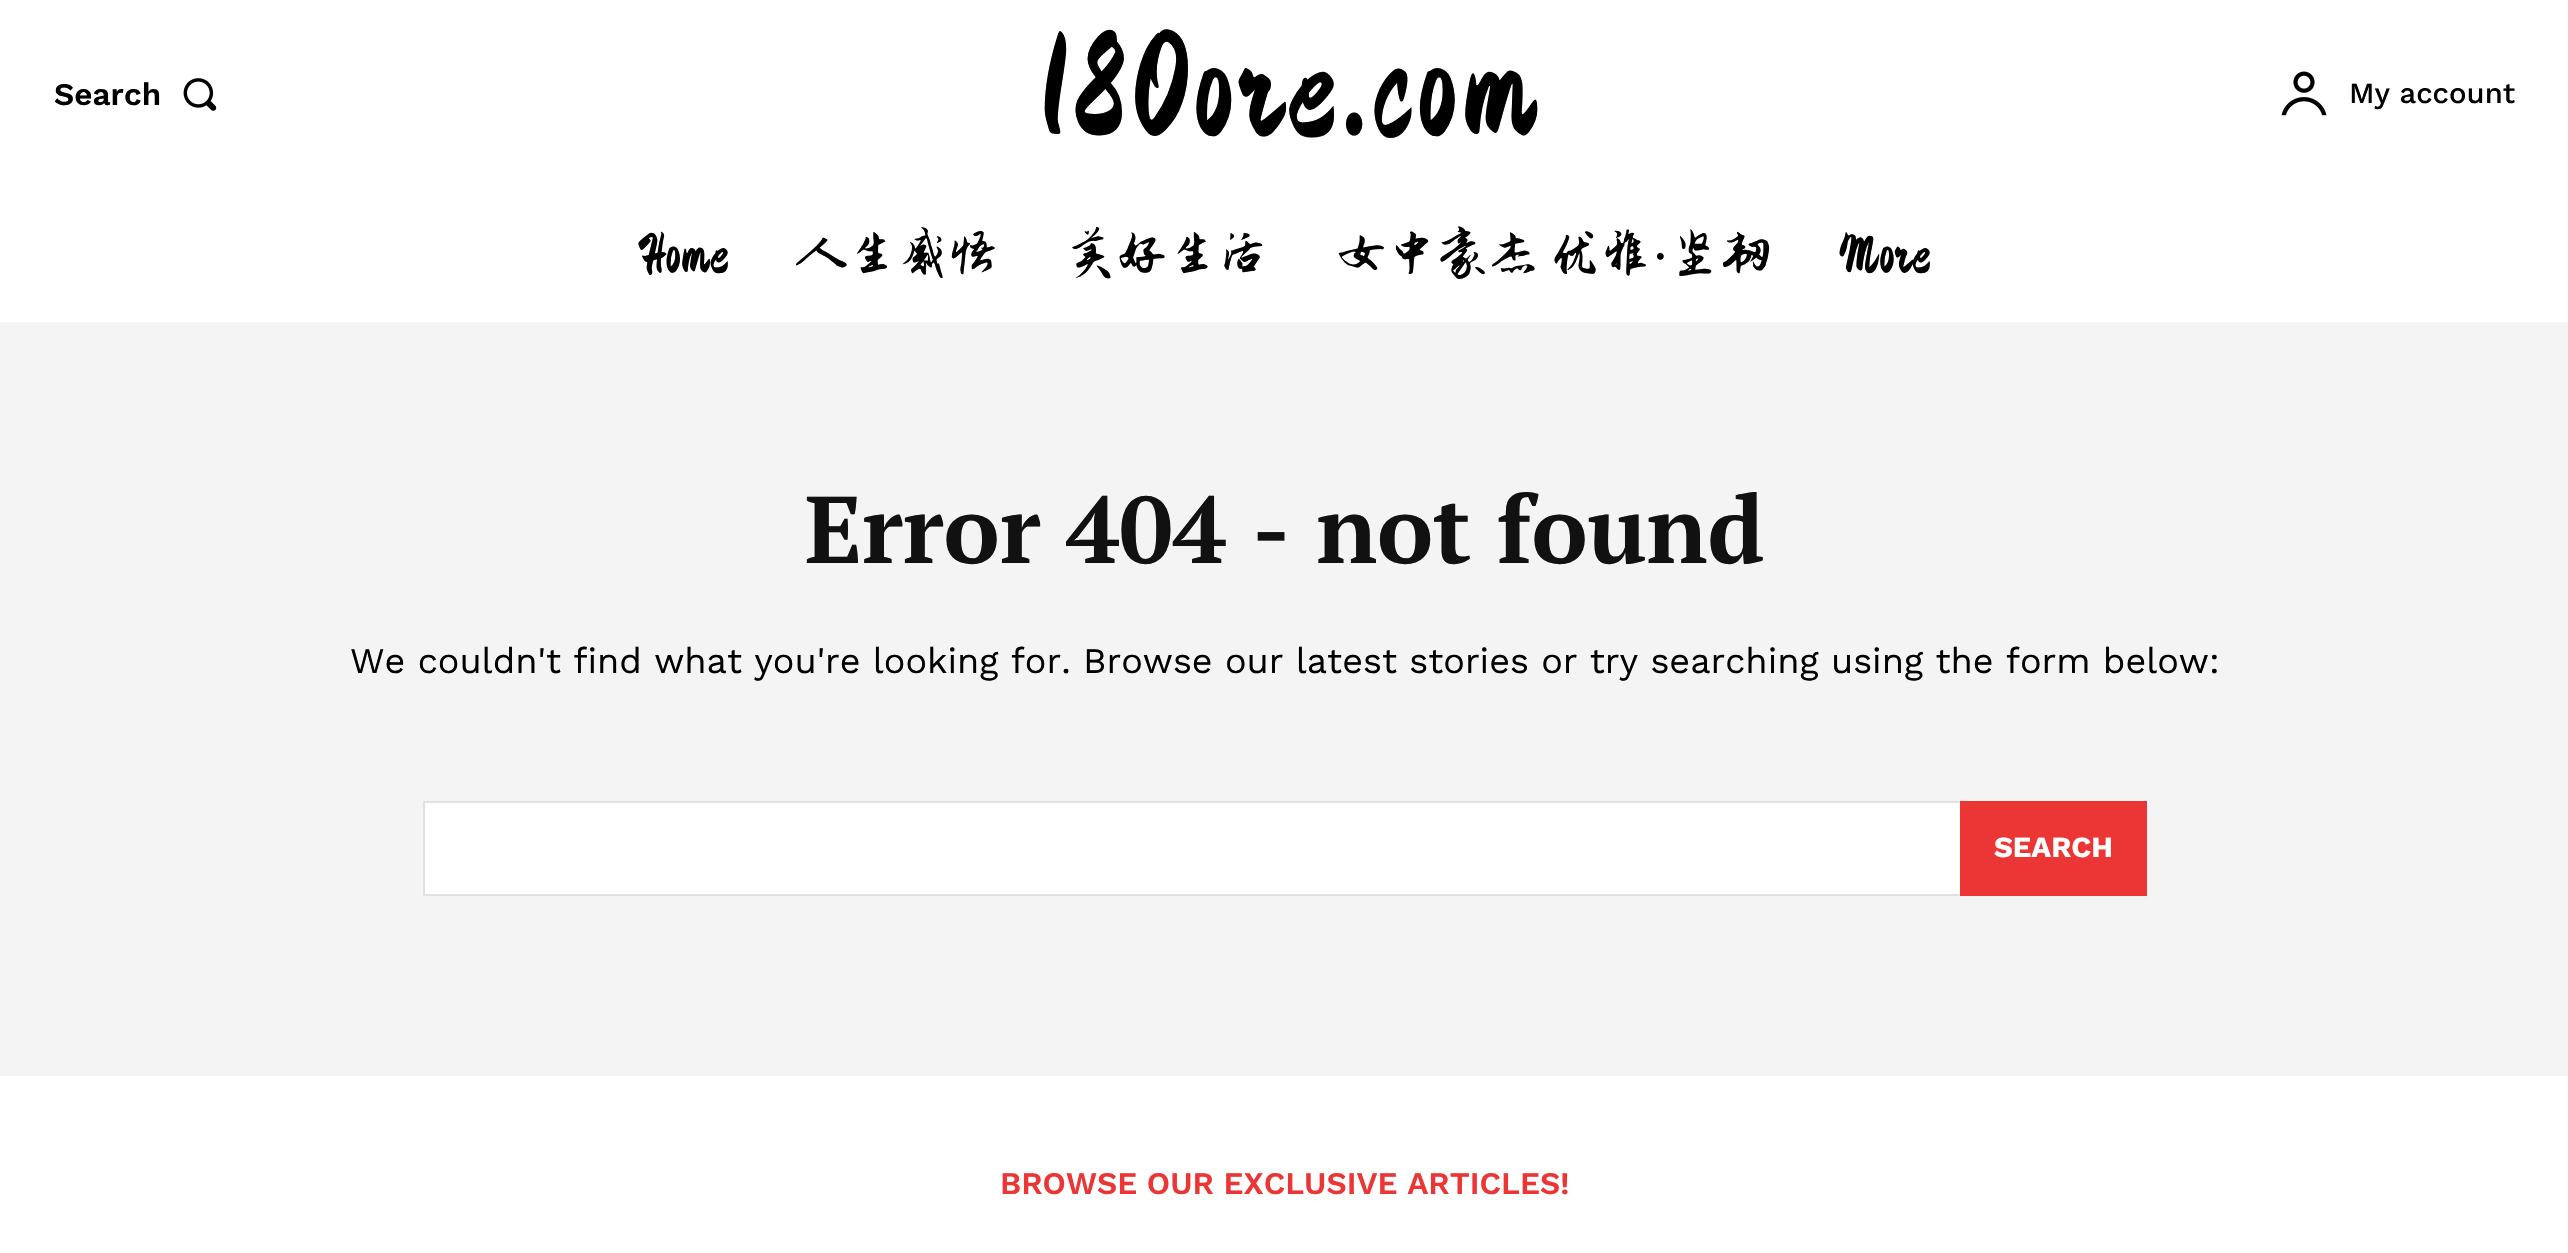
void draw(SkCanvas* canvas) {
	SkPaint fill;
	fill.setAntiAlias(true);
	auto makeFont = [&](const char* family, int weight, float size, bool italic = false) {
		SkFontStyle style(weight, SkFontStyle::kNormal_Width,
			italic ? SkFontStyle::kItalic_Slant : SkFontStyle::kUpright_Slant);
		SkFont result(fontMgr->matchFamilyStyle(family, style), size);
		result.setSubpixel(true);
		return result;
	};
	auto text = [&](const char* s, float x, float y, const SkFont& font) {
		canvas->drawString(s, x, y, font, fill);
	};
	auto spacedText = [&](const char* s, float x, float y, const SkFont& font, const SkPaint& ink, float letter, float word) {
		std::vector<SkGlyphID> glyphs(font.countText(s, strlen(s), SkTextEncoding::kUTF8));
		std::vector<float> xs(glyphs.size());
		font.textToGlyphs(s, strlen(s), SkTextEncoding::kUTF8, glyphs);
		font.getXPos(glyphs, xs, x);
		float extra = 0;
		for (size_t i = 0; i < glyphs.size(); i++) {
			xs[i] += extra;
			extra += letter + word * (glyphs[i] == font.unicharToGlyph(' '));
		}
		canvas->drawTextBlob(SkTextBlob::MakeFromPosHGlyphs(glyphs, xs, y, font), 0, 0, ink);
	};
	auto box = [&](float l, float t, float r, float b) {
		canvas->drawRect(SkRect::MakeLTRB(l, t, r, b), fill);
	};
	auto picture = [&](const char* path, float l, float t, float r, float b) {
		auto image = SkImages::DeferredFromEncodedData(SkData::MakeFromFileName(path));
		canvas->drawImageRect(image, SkRect::MakeLTRB(l, t, r, b), SkSamplingOptions());
	};
	canvas->clear(0xFFFFFFFF);
	picture("image0.png", 183, 78, 217, 111);
	picture("image1.png", 2281, 71, 2327, 116);
	fill.setColor(0xFFF4F4F4);
	box(0, 322, 2568, 1076);
	fill.setColor(0xFFFFFFFF);
	box(425, 803, 1960, 894);
	fill.setStyle(SkPaint::kStroke_Style);
	fill.setStrokeWidth(2);
	fill.setColor(0xFFE1E1E1);
	canvas->drawRect(SkRect::MakeLTRB(424, 802, 2146, 895), fill);
	fill.setStyle(SkPaint::kFill_Style);
	fill.setColor(0xFFEC3535);
	box(1960, 801, 2147, 896);
	auto font1 = makeFont("Work Sans", 600, 31.5f);
	fill.setColor(0xFF000000);
	text("Search", 54, 105, font1);
	auto font2 = makeFont("Zhi Mang Xing", 400, 146);
	spacedText("180ore.com", 1038, 142, font2, fill, 4.5f, 0);
	auto font3 = makeFont("Work Sans", 500, 29.25f);
	text("My account", 2349, 103, font3);
	auto font4 = makeFont("Zhi Mang Xing", 400, 56.25f);
	text("Home", 639, 275, font4);
	text("人生感悟", 796, 275, font4);
	text("美好生活", 1066, 275, font4);
	text("女中豪杰 优雅", 1336, 275, font4);
	auto font5 = makeFont("Liberation Serif", 400, 56.25f);
	text("·", 1651, 275, font5);
	text("坚韧", 1670, 275, font4);
	text("More", 1839, 275, font4);
	auto font6 = makeFont("PT Serif", 700, 94.5f);
	fill.setColor(0xFF111111);
	text("Error 404 - not found", 805, 563, font6);
	auto font7 = makeFont("Work Sans", 400, 36);
	fill.setColor(0xFF000000);
	text("We couldn't find what you're looking for. Browse our latest stories or try searching using the form below:", 350, 673, font7);
	auto font8 = makeFont("Work Sans", 700, 29.25f);
	fill.setColor(0xFFFFFFFF);
	text("SEARCH", 1994, 857, font8);
	fill.setColor(0xFFEC3535);
	text("BROWSE OUR EXCLUSIVE ARTICLES!", 1000, 1194, font1);
}
